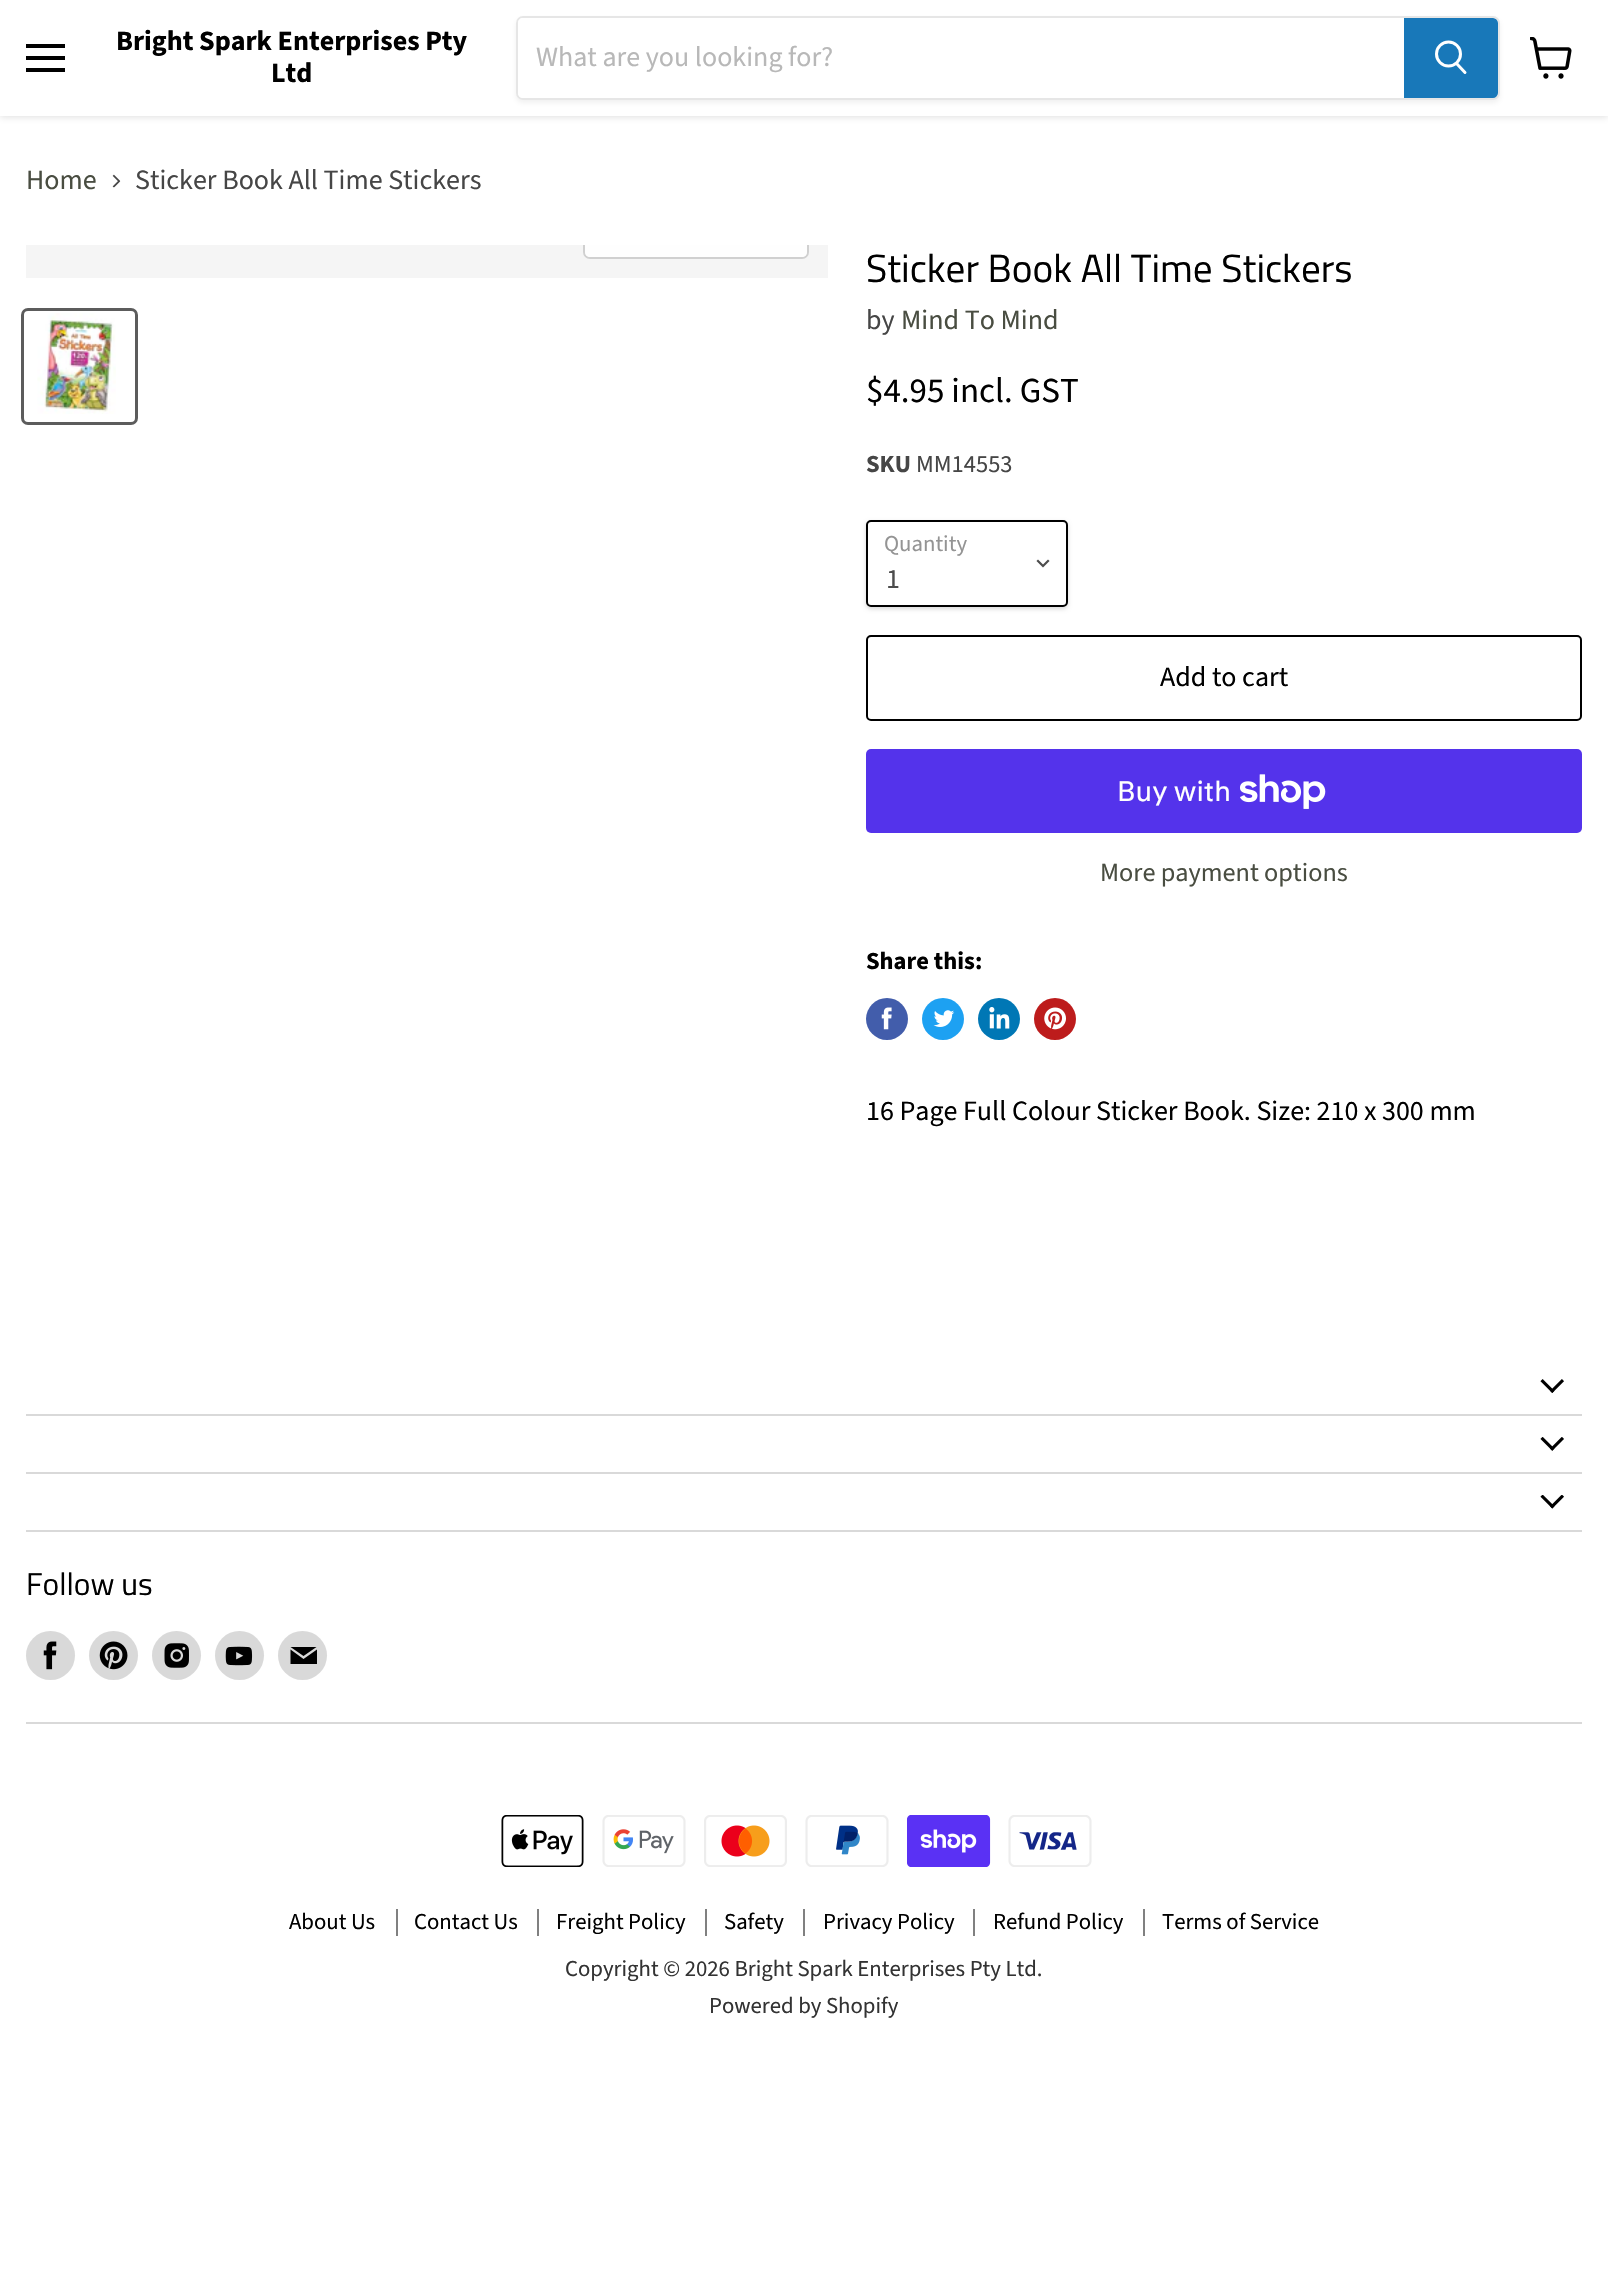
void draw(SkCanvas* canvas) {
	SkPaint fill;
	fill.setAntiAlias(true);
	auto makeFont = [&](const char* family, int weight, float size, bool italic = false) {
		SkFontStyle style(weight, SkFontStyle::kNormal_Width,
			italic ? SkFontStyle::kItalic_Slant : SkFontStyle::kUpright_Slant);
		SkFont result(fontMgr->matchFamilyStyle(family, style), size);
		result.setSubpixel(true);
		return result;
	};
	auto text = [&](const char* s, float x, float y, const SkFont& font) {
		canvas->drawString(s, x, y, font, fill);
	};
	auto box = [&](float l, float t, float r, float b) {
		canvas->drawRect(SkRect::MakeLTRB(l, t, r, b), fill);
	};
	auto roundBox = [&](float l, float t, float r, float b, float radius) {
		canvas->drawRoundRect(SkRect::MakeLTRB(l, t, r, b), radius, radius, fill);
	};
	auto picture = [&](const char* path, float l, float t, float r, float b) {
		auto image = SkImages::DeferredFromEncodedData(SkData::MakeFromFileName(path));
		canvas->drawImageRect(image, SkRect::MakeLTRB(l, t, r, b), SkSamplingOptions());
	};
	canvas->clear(0xFFFFFFFF);
	fill.setColor(0x40808080);
	fill.setMaskFilter(SkMaskFilter::MakeBlur(kNormal_SkBlurStyle, 3.5f));
	canvas->drawRect(SkRect::MakeLTRB(0, 2, 1608, 117), fill);
	fill.setMaskFilter(nullptr);
	fill.setColor(0xFFFFFFFF);
	box(0, 0, 1608, 116);
	fill.setColor(0xFF000000);
	box(26, 44, 65, 48);
	box(26, 56, 65, 60);
	box(26, 68, 65, 72);
	canvas->save();
	canvas->clipPath(SkPathBuilder(SkPathFillType::kEvenOdd).moveTo(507, 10).lineTo(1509, 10).lineTo(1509, 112).lineTo(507, 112).close().moveTo(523, 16).lineTo(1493, 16).cubicTo(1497, 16, 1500, 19, 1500, 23).lineTo(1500, 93).cubicTo(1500, 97, 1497, 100, 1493, 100).lineTo(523, 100).cubicTo(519, 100, 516, 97, 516, 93).lineTo(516, 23).cubicTo(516, 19, 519, 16, 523, 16).close().detach(), true);
	fill.setColor(0x1C808080);
	fill.setMaskFilter(SkMaskFilter::MakeBlur(kNormal_SkBlurStyle, 2.5f));
	canvas->drawRoundRect(SkRect::MakeLTRB(516, 19, 1500, 103), 7, 7, fill);
	fill.setMaskFilter(nullptr);
	canvas->restore();
	fill.setStyle(SkPaint::kStroke_Style);
	fill.setStrokeWidth(2);
	fill.setColor(0x33808080);
	canvas->drawRoundRect(SkRect::MakeLTRB(517, 17, 1499, 99), 6, 6, fill);
	fill.setStyle(SkPaint::kFill_Style);
	fill.setColor(0xFFFFFFFF);
	canvas->drawPath(SkPathBuilder().moveTo(523, 18).lineTo(1404, 18).lineTo(1404, 98).lineTo(523, 98).cubicTo(520, 98, 518, 96, 518, 93).lineTo(518, 23).cubicTo(518, 20, 520, 18, 523, 18).close().detach(), fill);
	fill.setColor(0xFF1878B9);
	canvas->drawPath(SkPathBuilder().moveTo(1405, 19).lineTo(1493, 19).cubicTo(1495, 19, 1497, 21, 1497, 23).lineTo(1497, 93).cubicTo(1497, 95, 1495, 97, 1493, 97).lineTo(1405, 97).close().detach(), fill);
	fill.setStyle(SkPaint::kStroke_Style);
	canvas->drawPath(SkPathBuilder().moveTo(1405, 19).lineTo(1493, 19).cubicTo(1495, 19, 1497, 21, 1497, 23).lineTo(1497, 93).cubicTo(1497, 95, 1495, 97, 1493, 97).lineTo(1405, 97).close().detach(), fill);
	fill.setStrokeWidth(3);
	fill.setStrokeCap(SkPaint::kRound_Cap);
	fill.setColor(0xFFFFFFFF);
	canvas->drawPath(SkPathBuilder().moveTo(1465, 72.5f).lineTo(1457, 64).detach(), fill);
	fill.setStrokeCap(SkPaint::kButt_Cap);
	canvas->drawCircle(1448.5f, 54, 12, fill);
	picture("image0.png", 1530, 37, 1572, 79);
	picture("image1.png", 112, 174, 121, 188);
	fill.setStyle(SkPaint::kFill_Style);
	fill.setColor(0xFFF5F5F5);
	box(26, 245, 828, 278);
	canvas->save();
	canvas->clipRect(SkRect::MakeLTRB(26, 245, 828, 278));
	fill.setStyle(SkPaint::kStroke_Style);
	fill.setStrokeWidth(2);
	fill.setColor(0xFFD0D0D0);
	canvas->drawRoundRect(SkRect::MakeLTRB(584, 208, 808, 258), 6, 6, fill);
	canvas->restore();
	fill.setStyle(SkPaint::kFill_Style);
	fill.setColor(0xE6FFFFFF);
	canvas->drawPath(SkPathBuilder().moveTo(585, 245).lineTo(807, 245).lineTo(807, 252).cubicTo(807, 255, 805, 257, 802, 257).lineTo(590, 257).cubicTo(587, 257, 585, 255, 585, 252).close().detach(), fill);
	fill.setStyle(SkPaint::kStroke_Style);
	fill.setStrokeWidth(3);
	fill.setColor(0xFF5C5C5C);
	canvas->drawRoundRect(SkRect::MakeLTRB(22.5f, 309.5f, 136.5f, 423.5f), 5.5f, 5.5f, fill);
	picture("image2.png", 37, 313, 116, 414);
	fill.setStyle(SkPaint::kFill_Style);
	fill.setColor(0x26000000);
	fill.setMaskFilter(SkMaskFilter::MakeBlur(kNormal_SkBlurStyle, 2));
	canvas->drawRoundRect(SkRect::MakeLTRB(866, 522, 1068, 609), 5, 5, fill);
	fill.setMaskFilter(nullptr);
	fill.setColor(0xFFFFFFFF);
	canvas->drawRoundRect(SkRect::MakeLTRB(867, 521, 1067, 606), 4, 4, fill);
	fill.setStyle(SkPaint::kStroke_Style);
	fill.setStrokeWidth(2);
	fill.setColor(0xFF000000);
	canvas->drawRoundRect(SkRect::MakeLTRB(867, 521, 1067, 606), 4, 4, fill);
	fill.setStrokeWidth(2.2f);
	fill.setStrokeCap(SkPaint::kSquare_Cap);
	fill.setColor(0xFF4D4D4D);
	canvas->drawPath(SkPathBuilder().moveTo(1043, 566).lineTo(1048, 561).moveTo(1043, 566).lineTo(1038, 561).detach(), fill);
	fill.setStrokeWidth(2);
	fill.setStrokeCap(SkPaint::kButt_Cap);
	fill.setColor(0xFF000000);
	canvas->drawRoundRect(SkRect::MakeLTRB(867, 636, 1581, 720), 4, 4, fill);
	fill.setStyle(SkPaint::kFill_Style);
	fill.setColor(0xFF5433EB);
	roundBox(866, 749, 1582, 833, 5);
	picture("image3.png", 1240, 774, 1326, 809);
	fill.setColor(0xFF425DAB);
	canvas->drawCircle(887, 1019, 21, fill);
	picture("image4.png", 881, 1007, 892, 1030);
	fill.setColor(0xFF1DA1F2);
	canvas->drawCircle(943, 1019, 21, fill);
	picture("image5.png", 933, 1010, 955, 1027);
	fill.setColor(0xFF0077B5);
	canvas->drawCircle(999, 1019, 21, fill);
	picture("image6.png", 989, 1007, 1010, 1029);
	fill.setColor(0xFFBD1C1C);
	canvas->drawCircle(1055, 1019, 21, fill);
	picture("image7.png", 1044, 1007, 1066, 1030);
	fill.setColor(0xFFD9D9D9);
	box(26, 1414, 1582, 1416);
	picture("image8.png", 1540, 1379, 1564, 1393);
	box(26, 1472, 1582, 1474);
	picture("image9.png", 1540, 1437, 1564, 1451);
	box(26, 1530, 1582, 1532);
	picture("image10.png", 1540, 1495, 1564, 1509);
	box(26, 1722, 1582, 1724);
	canvas->drawCircle(50.5f, 1655.5f, 24.5f, fill);
	picture("image11.png", 43, 1641, 57, 1670);
	canvas->drawCircle(113.5f, 1655.5f, 24.5f, fill);
	picture("image12.png", 99, 1641, 128, 1670);
	canvas->drawCircle(176.5f, 1655.5f, 24.5f, fill);
	picture("image13.png", 164, 1643, 189, 1668);
	canvas->drawCircle(239.5f, 1655.5f, 24.5f, fill);
	picture("image14.png", 225, 1646, 253, 1666);
	canvas->drawCircle(302.5f, 1655.5f, 24.5f, fill);
	fill.setColor(0xFF000000);
	canvas->drawPath(SkPathBuilder(SkPathFillType::kEvenOdd).moveTo(316.5f, 1647).lineTo(290.5f, 1647).lineTo(303.5f, 1656).close().moveTo(303.5f, 1659).lineTo(290.5f, 1649.5f).lineTo(290.5f, 1664).lineTo(317, 1664).lineTo(317, 1649.5f).close().detach(), fill);
	picture("image15.png", 501, 1815, 584, 1867);
	picture("image16.png", 602, 1815, 686, 1867);
	picture("image17.png", 704, 1815, 787, 1867);
	picture("image18.png", 805, 1815, 889, 1867);
	picture("image19.png", 907, 1815, 991, 1867);
	picture("image20.png", 1008, 1815, 1092, 1867);
	fill.setColor(0xFF808080);
	box(396, 1909, 398, 1936);
	box(537, 1909, 539, 1936);
	box(705, 1909, 707, 1936);
	box(803, 1909, 805, 1936);
	box(973, 1909, 975, 1936);
	box(1143, 1909, 1145, 1936);
	auto font1 = makeFont("Source Sans Pro", 700, 28);
	fill.setColor(0xFF000000);
	text("Bright Spark Enterprises Pty", 116, 50, font1);
	text("Ltd", 271, 82, font1);
	auto font2 = makeFont("Source Sans Pro", 400, 28);
	fill.setColor(0xFFB8B8B8);
	text("What are you looking for?", 536, 66, font2);
	fill.setColor(0xFF494D41);
	text("Home", 26, 189, font2);
	fill.setColor(0xFF464646);
	text("Sticker Book All Time Stickers", 135, 189, font2);
	auto font3 = makeFont("Titillium Web", 400, 39.25f);
	fill.setColor(0xFF000000);
	text("Sticker Book All Time Stickers", 866, 282, font3);
	fill.setColor(0xFF464646);
	text("by", 866, 329, font2);
	fill.setColor(0xFF494D41);
	text("Mind To Mind", 901, 329, font2);
	auto font4 = makeFont("Source Sans Pro", 400, 35);
	fill.setColor(0xFF000000);
	text("$4.95 incl. GST", 866, 402, font4);
	auto font5 = makeFont("Source Sans Pro", 700, 24.5f);
	fill.setColor(0xFF464646);
	text("SKU", 866, 472, font5);
	auto font6 = makeFont("Source Sans Pro", 400, 24.5f);
	text("MM14553", 916, 472, font6);
	auto font7 = makeFont("Source Sans Pro", 400, 22.75f);
	fill.setColor(0xFF949494);
	text("Quantity", 884, 551, font7);
	fill.setColor(0xFF4D4D4D);
	text("1", 886, 588, font2);
	fill.setColor(0xFF000000);
	text("Add to cart", 1160, 686, font2);
	auto font8 = makeFont("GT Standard", 400, 28);
	fill.setColor(0xFFFFFFFF);
	text("Buy with", 1117, 801, font8);
	auto font9 = makeFont("Source Sans Pro", 400, 26.25f);
	fill.setColor(0xFF494D41);
	text("More payment options", 1100, 881, font9);
	fill.setColor(0xFF000000);
	text("Share this:", 866, 969, font5);
	text("16 Page Full Colour Sticker Book. Size: 210 x 300 mm", 866, 1120, font2);
	auto font10 = makeFont("Titillium Web", 400, 31.5f);
	text("Follow us", 26, 1595, font10);
	text("About Us", 289, 1929, font7);
	text("Contact Us", 414, 1929, font7);
	text("Freight Policy", 556, 1929, font7);
	text("Safety", 724, 1929, font7);
	text("Privacy Policy", 823, 1929, font7);
	text("Refund Policy", 993, 1929, font7);
	text("Terms of Service", 1162, 1929, font7);
	fill.setColor(0xFF333333);
	text("Copyright © 2026 Bright Spark Enterprises Pty Ltd.", 565, 1976, font7);
	text("Powered by Shopify", 709, 2013, font7);
}
